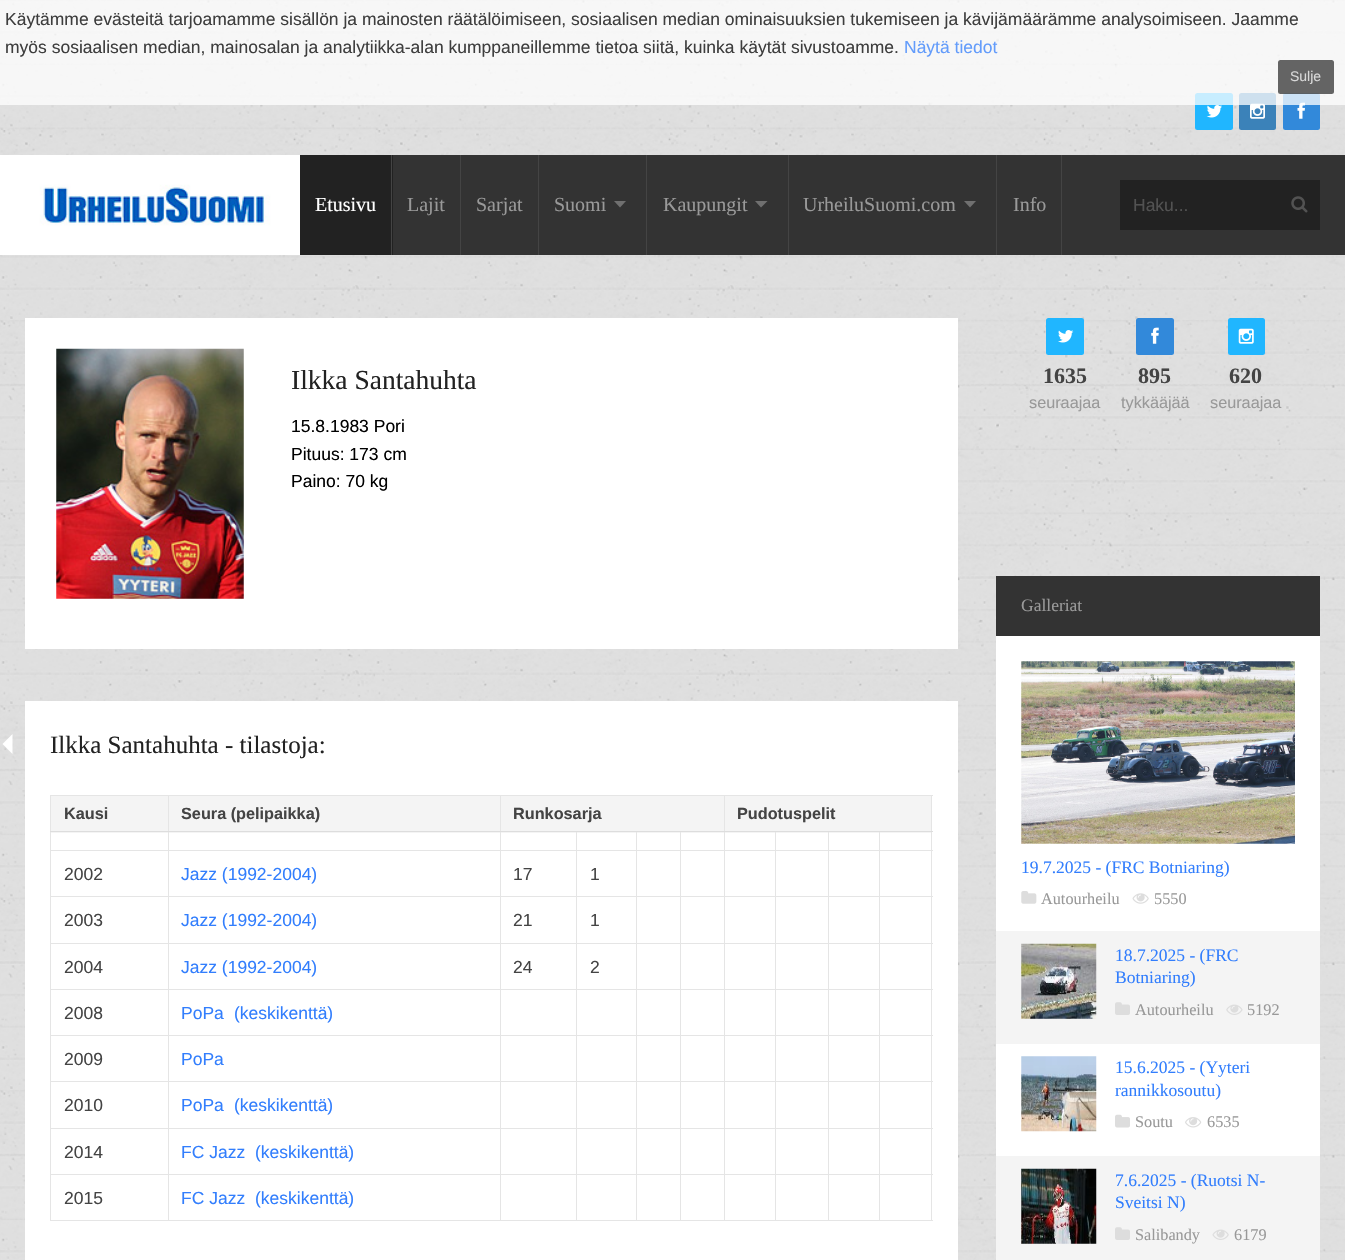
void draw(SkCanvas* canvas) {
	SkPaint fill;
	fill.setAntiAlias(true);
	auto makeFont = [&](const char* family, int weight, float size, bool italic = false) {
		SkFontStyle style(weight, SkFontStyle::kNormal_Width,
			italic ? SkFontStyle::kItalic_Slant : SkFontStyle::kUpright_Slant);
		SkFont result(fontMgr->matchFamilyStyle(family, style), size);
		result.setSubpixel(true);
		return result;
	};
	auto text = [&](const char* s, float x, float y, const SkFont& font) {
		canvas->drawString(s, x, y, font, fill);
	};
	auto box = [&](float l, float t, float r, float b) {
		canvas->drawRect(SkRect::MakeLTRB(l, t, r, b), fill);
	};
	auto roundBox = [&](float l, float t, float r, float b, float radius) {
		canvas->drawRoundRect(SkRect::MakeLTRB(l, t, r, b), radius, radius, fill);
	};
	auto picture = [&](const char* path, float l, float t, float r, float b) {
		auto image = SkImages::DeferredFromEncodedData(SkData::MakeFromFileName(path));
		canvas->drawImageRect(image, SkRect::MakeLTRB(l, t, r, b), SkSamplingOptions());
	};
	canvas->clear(0xFFFFFFFF);
	picture("image0.png", 0, 0, 1345, 1260);
	fill.setColor(0xFF20B6FF);
	roundBox(1195, 93, 1233, 130, 2.5f);
	fill.setColor(0xFF3B82B9);
	roundBox(1239, 93, 1276, 130, 2.5f);
	picture("image2.png", 1250, 103, 1265, 119);
	fill.setColor(0xFF3289DA);
	roundBox(1283, 93, 1320, 130, 2.5f);
	picture("image3.png", 1297, 102, 1305, 119);
	fill.setColor(0xBFFFFFFF);
	box(0, 0, 1345, 105);
	fill.setColor(0xBF333333);
	roundBox(1278, 60, 1334, 94, 2.5f);
	picture("image1.png", 1206, 105, 1222, 118);
	fill.setColor(0xFF333333);
	box(393, 155, 1345, 255);
	picture("image4.png", 0, 155, 300, 255);
	fill.setColor(0xFF222222);
	box(300, 155, 393, 255);
	fill.setColor(0xFF444444);
	box(391, 155, 392, 255);
	box(460, 155, 461, 255);
	box(538, 155, 539, 255);
	box(646, 155, 647, 255);
	fill.setColor(0xFF707070);
	canvas->drawPath(SkPathBuilder().moveTo(614, 201).lineTo(626, 201).lineTo(620, 207.5f).close().detach(), fill);
	fill.setColor(0xFF444444);
	box(788, 155, 789, 255);
	fill.setColor(0xFF707070);
	canvas->drawPath(SkPathBuilder().moveTo(755, 201).lineTo(767.5f, 201).lineTo(761, 207.5f).close().detach(), fill);
	fill.setColor(0xFF444444);
	box(996, 155, 997, 255);
	fill.setColor(0xFF707070);
	canvas->drawPath(SkPathBuilder().moveTo(964, 201).lineTo(976, 201).lineTo(970, 207.5f).close().detach(), fill);
	fill.setColor(0xFF444444);
	box(1061, 155, 1062, 255);
	fill.setColor(0xFF222222);
	box(1120, 180, 1320, 230);
	picture("image5.png", 1291, 196, 1308, 213);
	fill.setColor(0xFFFFFFFF);
	box(25, 318, 958, 649);
	picture("image6.png", 56, 348, 244, 599);
	box(25, 701, 958, 1260);
	canvas->drawPath(SkPathBuilder().moveTo(12.5f, 734).lineTo(12.5f, 754).lineTo(2.5f, 744).close().detach(), fill);
	fill.setColor(0xFFE5E5E5);
	box(50, 795, 933, 796);
	box(50, 795, 51, 1221);
	fill.setColor(0xFFF4F4F4);
	box(51, 796, 168, 833);
	box(169, 796, 500, 833);
	box(501, 796, 724, 833);
	box(725, 796, 931, 833);
	fill.setColor(0xFFE5E5E5);
	box(931, 795, 932, 1221);
	box(879, 1220, 933, 1221);
	box(879, 1174, 880, 1221);
	box(879, 1174, 933, 1175);
	box(879, 1128, 880, 1175);
	box(879, 1128, 933, 1129);
	box(879, 1081, 880, 1129);
	box(879, 1081, 933, 1082);
	box(879, 1035, 880, 1083);
	box(879, 1035, 933, 1036);
	box(879, 989, 880, 1036);
	box(879, 989, 933, 990);
	box(879, 943, 880, 990);
	box(879, 943, 933, 944);
	box(879, 896, 880, 944);
	box(879, 896, 933, 897);
	box(879, 850, 880, 898);
	box(879, 850, 933, 851);
	box(879, 831, 880, 851);
	box(828, 1220, 880, 1221);
	box(828, 1174, 829, 1221);
	box(828, 1174, 880, 1175);
	box(828, 1128, 829, 1175);
	box(828, 1128, 880, 1129);
	box(828, 1081, 829, 1129);
	box(828, 1081, 880, 1082);
	box(828, 1035, 829, 1083);
	box(828, 1035, 880, 1036);
	box(828, 989, 829, 1036);
	box(828, 989, 880, 990);
	box(828, 943, 829, 990);
	box(828, 943, 880, 944);
	box(828, 896, 829, 944);
	box(828, 896, 880, 897);
	box(828, 850, 829, 898);
	box(828, 850, 880, 851);
	box(828, 831, 829, 851);
	box(775, 1220, 829, 1221);
	box(775, 1174, 776, 1221);
	box(775, 1174, 829, 1175);
	box(775, 1128, 776, 1175);
	box(775, 1128, 829, 1129);
	box(775, 1081, 776, 1129);
	box(775, 1081, 829, 1082);
	box(775, 1035, 776, 1083);
	box(775, 1035, 829, 1036);
	box(775, 989, 776, 1036);
	box(775, 989, 829, 990);
	box(775, 943, 776, 990);
	box(775, 943, 829, 944);
	box(775, 896, 776, 944);
	box(775, 896, 829, 897);
	box(775, 850, 776, 898);
	box(775, 850, 829, 851);
	box(775, 831, 776, 851);
	box(724, 1220, 776, 1221);
	box(724, 1174, 725, 1221);
	box(724, 1174, 776, 1175);
	box(724, 1128, 725, 1175);
	box(724, 1128, 776, 1129);
	box(724, 1081, 725, 1129);
	box(724, 1081, 776, 1082);
	box(724, 1035, 725, 1083);
	box(724, 1035, 776, 1036);
	box(724, 989, 725, 1036);
	box(724, 989, 776, 990);
	box(724, 943, 725, 990);
	box(724, 943, 776, 944);
	box(724, 896, 725, 944);
	box(724, 896, 776, 897);
	box(724, 850, 725, 898);
	box(724, 850, 776, 851);
	box(724, 831, 725, 851);
	fill.setColor(0xFFDDDDDD);
	box(724, 831, 933, 832);
	fill.setColor(0xFFE5E5E5);
	box(724, 795, 725, 833);
	box(680, 1220, 725, 1221);
	box(680, 1174, 681, 1221);
	box(680, 1174, 725, 1175);
	box(680, 1128, 681, 1175);
	box(680, 1128, 725, 1129);
	box(680, 1081, 681, 1129);
	box(680, 1081, 725, 1082);
	box(680, 1035, 681, 1083);
	box(680, 1035, 725, 1036);
	box(680, 989, 681, 1036);
	box(680, 989, 725, 990);
	box(680, 943, 681, 990);
	box(680, 943, 725, 944);
	box(680, 896, 681, 944);
	box(680, 896, 725, 897);
	box(680, 850, 681, 898);
	box(680, 850, 725, 851);
	box(680, 831, 681, 851);
	box(636, 1220, 681, 1221);
	box(636, 1174, 637, 1221);
	box(636, 1174, 681, 1175);
	box(636, 1128, 637, 1175);
	box(636, 1128, 681, 1129);
	box(636, 1081, 637, 1129);
	box(636, 1081, 681, 1082);
	box(636, 1035, 637, 1083);
	box(636, 1035, 681, 1036);
	box(636, 989, 637, 1036);
	box(636, 989, 681, 990);
	box(636, 943, 637, 990);
	box(636, 943, 681, 944);
	box(636, 896, 637, 944);
	box(636, 896, 681, 897);
	box(636, 850, 637, 898);
	box(636, 850, 681, 851);
	box(636, 831, 637, 851);
	box(576, 1220, 638, 1221);
	box(576, 1174, 577, 1221);
	box(576, 1174, 638, 1175);
	box(576, 1128, 577, 1175);
	box(576, 1128, 638, 1129);
	box(576, 1081, 577, 1129);
	box(576, 1081, 638, 1082);
	box(576, 1035, 577, 1083);
	box(576, 1035, 638, 1036);
	box(576, 989, 577, 1036);
	box(576, 989, 638, 990);
	box(576, 943, 577, 990);
	box(576, 943, 638, 944);
	box(576, 896, 577, 944);
	box(576, 896, 638, 897);
	box(576, 850, 577, 898);
	box(576, 850, 638, 851);
	box(576, 831, 577, 851);
	box(500, 1220, 578, 1221);
	box(500, 1174, 501, 1221);
	box(500, 1174, 578, 1175);
	box(500, 1128, 501, 1175);
	box(500, 1128, 578, 1129);
	box(500, 1081, 501, 1129);
	box(500, 1081, 578, 1082);
	box(500, 1035, 501, 1083);
	box(500, 1035, 578, 1036);
	box(500, 989, 501, 1036);
	box(500, 989, 578, 990);
	box(500, 943, 501, 990);
	box(500, 943, 578, 944);
	box(500, 896, 501, 944);
	box(500, 896, 578, 897);
	box(500, 850, 501, 898);
	box(500, 850, 578, 851);
	box(500, 831, 501, 851);
	fill.setColor(0xFFDDDDDD);
	box(500, 831, 725, 832);
	fill.setColor(0xFFE5E5E5);
	box(500, 795, 501, 833);
	box(168, 1220, 501, 1221);
	box(168, 1174, 169, 1221);
	box(168, 1174, 501, 1175);
	box(168, 1128, 169, 1175);
	box(168, 1128, 501, 1129);
	box(168, 1081, 169, 1129);
	box(168, 1081, 501, 1082);
	box(168, 1035, 169, 1083);
	box(168, 1035, 501, 1036);
	box(168, 989, 169, 1036);
	box(168, 989, 501, 990);
	box(168, 943, 169, 990);
	box(168, 943, 501, 944);
	box(168, 896, 169, 944);
	box(168, 896, 501, 897);
	box(168, 850, 169, 898);
	box(168, 850, 501, 851);
	box(168, 831, 169, 851);
	fill.setColor(0xFFDDDDDD);
	box(168, 831, 501, 832);
	fill.setColor(0xFFE5E5E5);
	box(168, 795, 169, 833);
	fill.setColor(0xFFDDDDDD);
	box(50, 831, 169, 832);
	fill.setColor(0xFFE5E5E5);
	box(50, 850, 169, 851);
	box(50, 896, 169, 897);
	box(50, 943, 169, 944);
	box(50, 989, 169, 990);
	box(50, 1035, 169, 1036);
	box(50, 1081, 169, 1082);
	box(50, 1128, 169, 1129);
	box(50, 1174, 169, 1175);
	box(50, 1220, 169, 1221);
	fill.setColor(0xFF20B6FF);
	roundBox(1046, 318, 1084, 355, 2.5f);
	picture("image7.png", 1058, 330, 1074, 343);
	fill.setColor(0xFF3289DA);
	roundBox(1136, 318, 1174, 355, 2.5f);
	picture("image8.png", 1151, 327, 1159, 344);
	fill.setColor(0xFF20B6FF);
	roundBox(1228, 318, 1265, 355, 2.5f);
	picture("image9.png", 1238, 328, 1254, 344);
	fill.setColor(0xFFFFFFFF);
	box(996, 636, 1320, 1156);
	fill.setColor(0xFF333333);
	box(996, 576, 1320, 636);
	picture("image10.png", 1021, 661, 1295, 844);
	picture("image11.png", 1021, 891, 1037, 904);
	picture("image12.png", 1132, 893, 1149, 904);
	fill.setColor(0xFFF4F4F4);
	box(996, 931, 1320, 1044);
	picture("image13.png", 1021, 943, 1097, 1019);
	picture("image14.png", 1115, 1002, 1130, 1015);
	picture("image15.png", 1226, 1004, 1243, 1015);
	picture("image16.png", 1021, 1056, 1097, 1132);
	picture("image17.png", 1115, 1114, 1130, 1128);
	picture("image18.png", 1185, 1117, 1202, 1128);
	box(996, 1156, 1320, 1260);
	picture("image19.png", 1021, 1168, 1097, 1244);
	picture("image14.png", 1115, 1227, 1130, 1240);
	picture("image20.png", 1212, 1229, 1229, 1240);
	auto font1 = makeFont("Liberation Sans", 400, 17.5f);
	fill.setColor(0xFF3E3E3E);
	text("Käytämme evästeitä tarjoamamme sisällön ja mainosten räätälöimiseen, sosiaalisen median ominaisuuksien tukemiseen ja kävijämäärämme analysoimiseen. Jaamme", 5, 25, font1);
	text("myös sosiaalisen median, mainosalan ja analytiikka-alan kumppaneillemme tietoa siitä, kuinka käytät sivustoamme.", 5, 53, font1);
	fill.setColor(0xFF639CFB);
	text("Näytä tiedot", 904, 53, font1);
	auto font2 = makeFont("Liberation Sans", 400, 14);
	fill.setColor(0xFFD8D8D8);
	text("Sulje", 1290, 81, font2);
	auto font3 = makeFont("Liberation Serif", 400, 20);
	fill.setColor(0xFFFFFFFF);
	text("Etusivu", 315, 211, font3);
	fill.setColor(0xFF999999);
	text("Lajit", 407, 211, font3);
	text("Sarjat", 476, 211, font3);
	text("Suomi", 554, 211, font3);
	text("Kaupungit", 663, 211, font3);
	text("UrheiluSuomi.com", 803, 211, font3);
	text("Info", 1013, 211, font3);
	fill.setColor(0xFF525252);
	text("Haku...", 1133, 211, font1);
	auto font4 = makeFont("Liberation Serif", 400, 27.5f);
	fill.setColor(0xFF222222);
	text("Ilkka Santahuhta", 291, 389, font4);
	fill.setColor(0xFF000000);
	text("15.8.1983 Pori", 291, 432, font1);
	text("Pituus: 173 cm", 291, 460, font1);
	text("Paino: 70 kg", 291, 487, font1);
	auto font5 = makeFont("Liberation Serif", 400, 25);
	fill.setColor(0xFF222222);
	text("Ilkka Santahuhta - tilastoja:", 50, 753, font5);
	auto font6 = makeFont("Liberation Sans", 700, 16.25f);
	fill.setColor(0xFF444444);
	text("Kausi", 64, 819, font6);
	text("Seura (pelipaikka)", 181, 819, font6);
	text("Runkosarja", 513, 819, font6);
	text("Pudotuspelit", 737, 819, font6);
	text("2002", 64, 880, font1);
	fill.setColor(0xFF327EFD);
	text("Jazz (1992-2004)", 181, 880, font1);
	fill.setColor(0xFF444444);
	text("17", 513, 880, font1);
	text("1", 590, 880, font1);
	text("2003", 64, 926, font1);
	fill.setColor(0xFF327EFD);
	text("Jazz (1992-2004)", 181, 926, font1);
	fill.setColor(0xFF444444);
	text("21", 513, 926, font1);
	text("1", 590, 926, font1);
	text("2004", 64, 973, font1);
	fill.setColor(0xFF327EFD);
	text("Jazz (1992-2004)", 181, 973, font1);
	fill.setColor(0xFF444444);
	text("24", 513, 973, font1);
	text("2", 590, 973, font1);
	text("2008", 64, 1019, font1);
	fill.setColor(0xFF327EFD);
	text("PoPa", 181, 1019, font1);
	text("(keskikenttä)", 234, 1019, font1);
	fill.setColor(0xFF444444);
	text("2009", 64, 1065, font1);
	fill.setColor(0xFF327EFD);
	text("PoPa", 181, 1065, font1);
	fill.setColor(0xFF444444);
	text("2010", 64, 1111, font1);
	fill.setColor(0xFF327EFD);
	text("PoPa", 181, 1111, font1);
	text("(keskikenttä)", 234, 1111, font1);
	fill.setColor(0xFF444444);
	text("2014", 64, 1158, font1);
	fill.setColor(0xFF327EFD);
	text("FC Jazz", 181, 1158, font1);
	text("(keskikenttä)", 255, 1158, font1);
	fill.setColor(0xFF444444);
	text("2015", 64, 1204, font1);
	fill.setColor(0xFF327EFD);
	text("FC Jazz", 181, 1204, font1);
	text("(keskikenttä)", 255, 1204, font1);
	auto font7 = makeFont("Liberation Serif", 700, 22);
	fill.setColor(0xFF444444);
	text("1635", 1043, 383, font7);
	auto font8 = makeFont("Liberation Sans", 400, 16.25f);
	fill.setColor(0xFF999999);
	text("seuraajaa", 1029, 408, font8);
	fill.setColor(0xFF444444);
	text("895", 1138, 383, font7);
	fill.setColor(0xFF999999);
	text("tykkääjää", 1121, 408, font8);
	fill.setColor(0xFF444444);
	text("620", 1229, 383, font7);
	fill.setColor(0xFF999999);
	text("seuraajaa", 1210, 408, font8);
	auto font9 = makeFont("Liberation Serif", 400, 17.5f);
	text("Galleriat", 1021, 611, font9);
	fill.setColor(0xFF327EFD);
	text("19.7.2025 - (FRC Botniaring)", 1021, 873, font9);
	auto font10 = makeFont("Liberation Serif", 400, 16.25f);
	fill.setColor(0xFF999999);
	text("Autourheilu", 1041, 904, font10);
	text("5550", 1154, 904, font10);
	fill.setColor(0xFF327EFD);
	text("18.7.2025 - (FRC", 1115, 961, font9);
	text("Botniaring)", 1115, 983, font9);
	fill.setColor(0xFF999999);
	text("Autourheilu", 1135, 1015, font10);
	text("5192", 1247, 1015, font10);
	fill.setColor(0xFF327EFD);
	text("15.6.2025 - (Yyteri", 1115, 1073, font9);
	text("rannikkosoutu)", 1115, 1096, font9);
	fill.setColor(0xFF999999);
	text("Soutu", 1135, 1127, font10);
	text("6535", 1207, 1127, font10);
	fill.setColor(0xFF327EFD);
	text("7.6.2025 - (Ruotsi N-", 1115, 1186, font9);
	text("Sveitsi N)", 1115, 1208, font9);
	fill.setColor(0xFF999999);
	text("Salibandy", 1135, 1240, font10);
	text("6179", 1234, 1240, font10);
}
